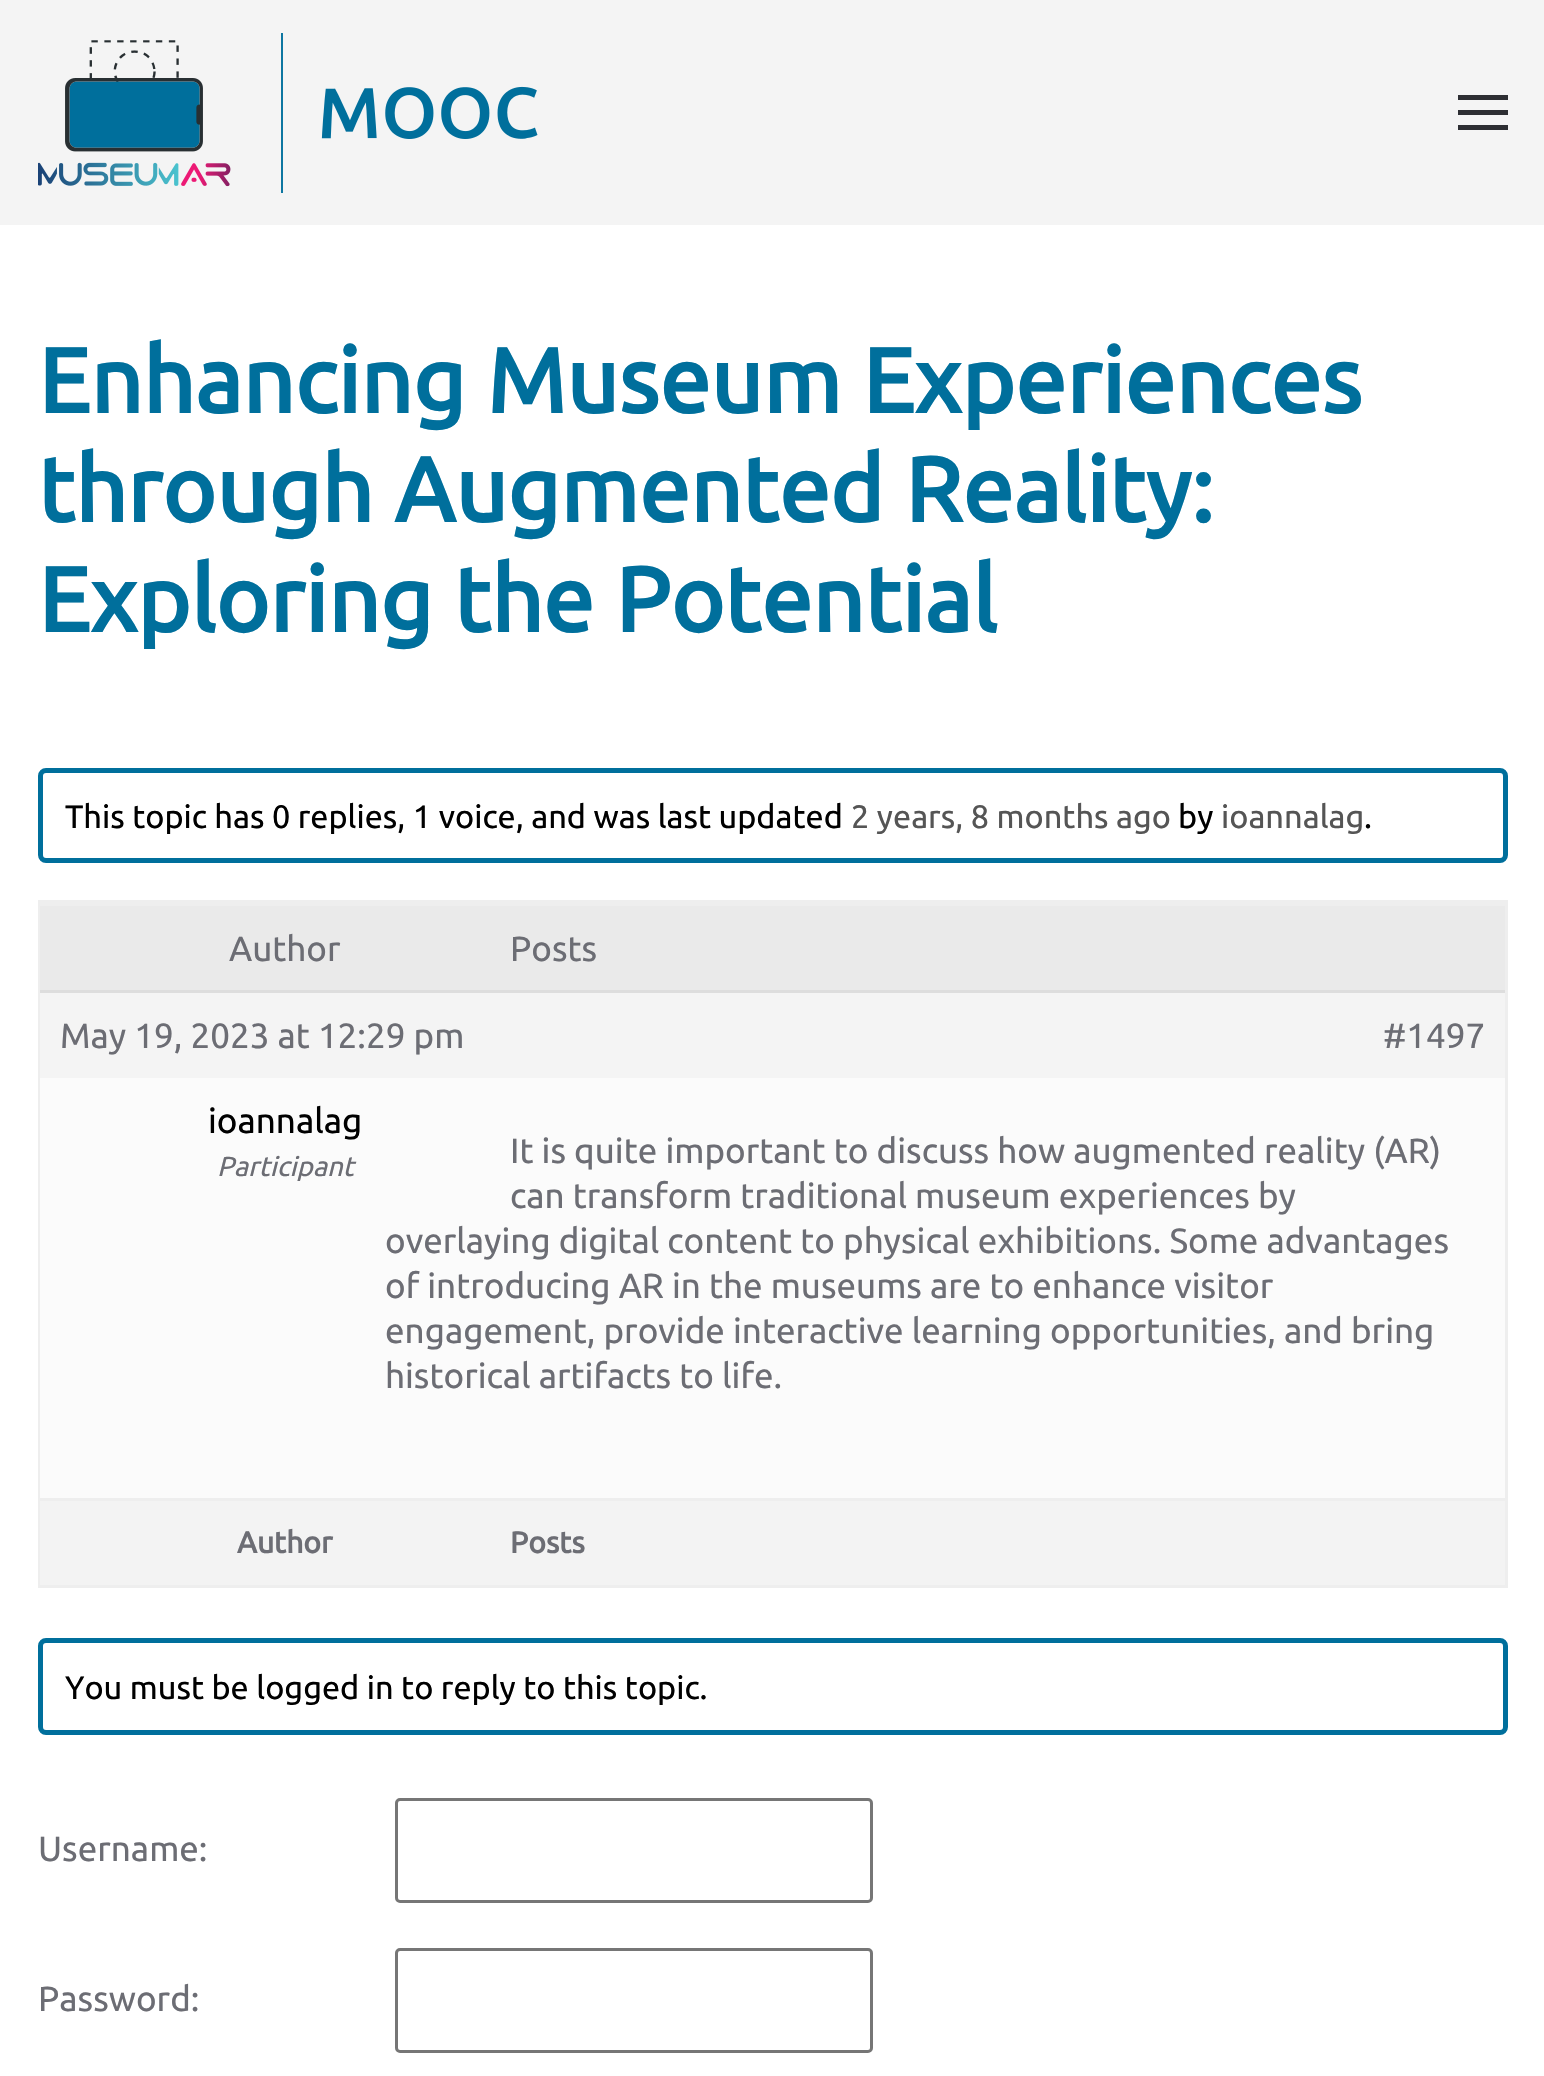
void draw(SkCanvas* canvas) {
	SkPaint fill;
	fill.setAntiAlias(true);
	auto makeFont = [&](const char* family, int weight, float size, bool italic = false) {
		SkFontStyle style(weight, SkFontStyle::kNormal_Width,
			italic ? SkFontStyle::kItalic_Slant : SkFontStyle::kUpright_Slant);
		SkFont result(fontMgr->matchFamilyStyle(family, style), size);
		result.setSubpixel(true);
		return result;
	};
	auto text = [&](const char* s, float x, float y, const SkFont& font) {
		canvas->drawString(s, x, y, font, fill);
	};
	auto box = [&](float l, float t, float r, float b) {
		canvas->drawRect(SkRect::MakeLTRB(l, t, r, b), fill);
	};
	auto picture = [&](const char* path, float l, float t, float r, float b) {
		auto image = SkImages::DeferredFromEncodedData(SkData::MakeFromFileName(path));
		canvas->drawImageRect(image, SkRect::MakeLTRB(l, t, r, b), SkSamplingOptions());
	};
	canvas->clear(0xFFFFFFFF);
	fill.setColor(0xFFF4F4F4);
	box(0, 0, 1544, 225);
	picture("image0.png", 38, 33, 538, 193);
	fill.setColor(0xFF2D2E33);
	box(1458, 95, 1508, 100);
	box(1458, 110, 1508, 115);
	box(1458, 125, 1508, 130);
	fill.setStyle(SkPaint::kStroke_Style);
	fill.setStrokeWidth(5);
	fill.setColor(0xFF006F9C);
	canvas->drawRoundRect(SkRect::MakeLTRB(40.5f, 770.5f, 1505.5f, 860.5f), 5.5f, 5.5f, fill);
	fill.setStrokeWidth(3);
	fill.setColor(0xFFEEEEEE);
	canvas->drawRect(SkRect::MakeLTRB(39.5f, 901.5f, 1506.5f, 1586.5f), fill);
	fill.setStyle(SkPaint::kFill_Style);
	fill.setColor(0xFFEAEAEA);
	box(40, 906, 1505, 990);
	fill.setColor(0xFFEEEEEE);
	box(40, 903, 1505, 906);
	fill.setColor(0xFFF4F4F4);
	box(40, 993, 1505, 1078);
	fill.setColor(0xFFDDDDDD);
	box(40, 990, 1505, 993);
	fill.setColor(0xFFFBFBFB);
	box(40, 1078, 1505, 1498);
	fill.setColor(0xFFF3F3F3);
	box(40, 1501, 1505, 1585);
	fill.setColor(0xFFEEEEEE);
	box(40, 1498, 1505, 1501);
	fill.setStyle(SkPaint::kStroke_Style);
	fill.setStrokeWidth(5);
	fill.setColor(0xFF006F9C);
	canvas->drawRoundRect(SkRect::MakeLTRB(40.5f, 1640.5f, 1505.5f, 1732.5f), 5.5f, 5.5f, fill);
	fill.setStrokeWidth(3);
	fill.setColor(0xFF767676);
	canvas->drawRoundRect(SkRect::MakeLTRB(396.5f, 1799.5f, 871.5f, 1901.5f), 3.5f, 3.5f, fill);
	canvas->drawRoundRect(SkRect::MakeLTRB(396.5f, 1949.5f, 871.5f, 2051.5f), 3.5f, 3.5f, fill);
	auto font1 = makeFont("Ubuntu", 700, 91.3f);
	fill.setStyle(SkPaint::kFill_Style);
	fill.setColor(0xFF006F9C);
	text("Enhancing Museum Experiences", 38, 413, font1);
	text("through Augmented Reality:", 38, 522, font1);
	text("Exploring the Potential", 38, 632, font1);
	auto font2 = makeFont("Ubuntu", 400, 32.5f);
	fill.setColor(0xFF000000);
	text("This topic has 0 replies, 1 voice, and was last updated", 65, 828, font2);
	fill.setColor(0xFF555555);
	text("2 years, 8 months ago", 851, 828, font2);
	fill.setColor(0xFF000000);
	text("by", 1178, 828, font2);
	fill.setColor(0xFF555555);
	text("ioannalag", 1221, 828, font2);
	fill.setColor(0xFF000000);
	text(".", 1364, 828, font2);
	auto font3 = makeFont("Ubuntu", 400, 35);
	fill.setColor(0xFF6C6D74);
	text("Author", 229, 961, font3);
	text("Posts", 510, 961, font3);
	text("May 19, 2023 at 12:29 pm", 60, 1048, font3);
	text("#1497", 1383, 1048, font3);
	fill.setColor(0xFF000000);
	text("ioannalag", 208, 1133, font3);
	auto font4 = makeFont("Ubuntu", 400, 27.5f, true);
	fill.setColor(0xFF6C6D74);
	text("Participant", 217, 1176, font4);
	text("It is quite important to discuss how augmented reality (AR)", 510, 1163, font3);
	text("can transform traditional museum experiences by", 510, 1208, font3);
	text("overlaying digital content to physical exhibitions. Some advantages", 385, 1253, font3);
	text("of introducing AR in the museums are to enhance visitor", 385, 1298, font3);
	text("engagement, provide interactive learning opportunities, and bring", 385, 1343, font3);
	text("historical artifacts to life.", 385, 1388, font3);
	auto font5 = makeFont("Ubuntu", 700, 30);
	text("Author", 237, 1553, font5);
	text("Posts", 510, 1553, font5);
	fill.setColor(0xFF000000);
	text("You must be logged in to reply to this topic.", 65, 1699, font2);
	fill.setColor(0xFF6C6D74);
	text("Username:", 38, 1861, font3);
	text("Password:", 38, 2011, font3);
}
